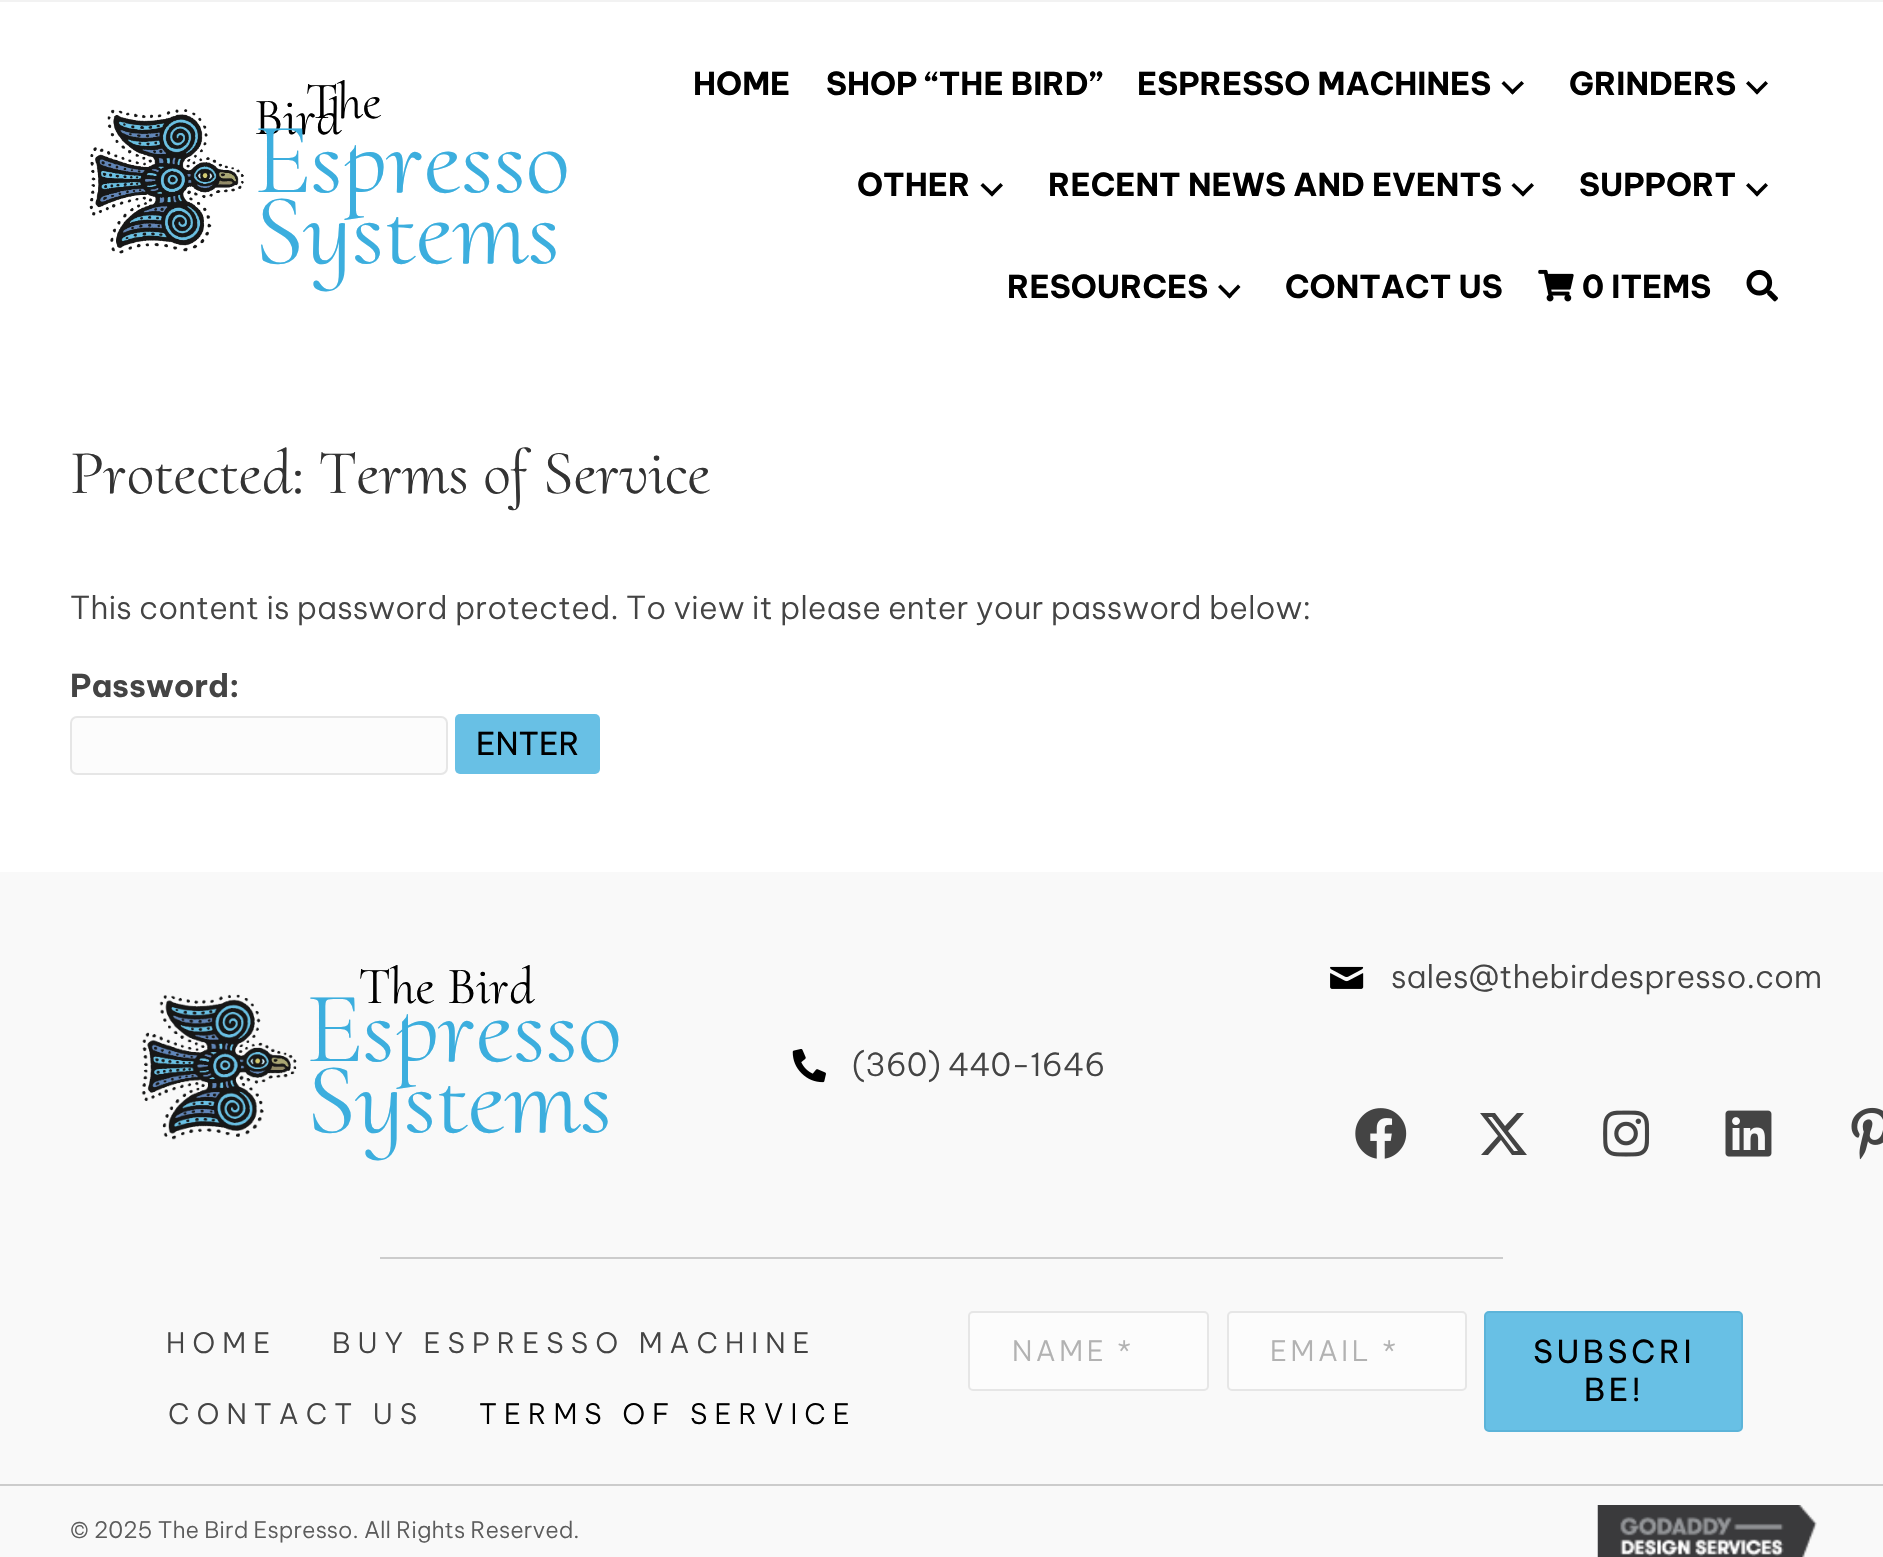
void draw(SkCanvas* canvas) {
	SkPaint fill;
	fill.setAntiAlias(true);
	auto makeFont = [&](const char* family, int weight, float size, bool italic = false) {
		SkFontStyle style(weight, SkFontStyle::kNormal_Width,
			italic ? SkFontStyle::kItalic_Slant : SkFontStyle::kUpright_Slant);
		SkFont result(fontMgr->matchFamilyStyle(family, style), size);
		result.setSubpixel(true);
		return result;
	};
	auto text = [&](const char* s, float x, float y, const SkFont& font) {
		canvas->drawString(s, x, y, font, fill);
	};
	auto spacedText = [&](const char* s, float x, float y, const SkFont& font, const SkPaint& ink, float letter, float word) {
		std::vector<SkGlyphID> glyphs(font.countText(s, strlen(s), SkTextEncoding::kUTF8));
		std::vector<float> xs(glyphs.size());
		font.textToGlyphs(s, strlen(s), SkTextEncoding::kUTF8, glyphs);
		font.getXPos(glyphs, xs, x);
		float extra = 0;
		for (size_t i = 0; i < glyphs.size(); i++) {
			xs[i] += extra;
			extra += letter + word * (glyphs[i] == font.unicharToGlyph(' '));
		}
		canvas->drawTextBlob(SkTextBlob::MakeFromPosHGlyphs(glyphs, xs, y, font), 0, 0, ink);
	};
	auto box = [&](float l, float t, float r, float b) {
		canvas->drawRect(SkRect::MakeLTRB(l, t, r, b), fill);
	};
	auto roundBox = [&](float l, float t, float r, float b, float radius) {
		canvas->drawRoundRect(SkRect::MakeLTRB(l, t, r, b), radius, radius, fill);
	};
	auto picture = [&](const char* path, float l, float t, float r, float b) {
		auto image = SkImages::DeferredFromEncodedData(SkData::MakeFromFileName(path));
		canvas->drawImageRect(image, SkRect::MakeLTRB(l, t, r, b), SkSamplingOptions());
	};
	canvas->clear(0xFFF2F2F2);
	fill.setColor(0xFFFFFFFF);
	box(0, 2, 1883, 872);
	picture("image0.png", 89, 109, 244, 254);
	fill.setColor(0xFF000000);
	canvas->drawPath(SkPathBuilder().moveTo(1521.5f, 81).lineTo(1524, 83.5f).lineTo(1512.5f, 94.5f).lineTo(1510, 92).close().detach(), fill);
	canvas->drawPath(SkPathBuilder().moveTo(1504, 81).lineTo(1515, 92).lineTo(1512.5f, 94.5f).lineTo(1501.5f, 83.5f).close().detach(), fill);
	canvas->drawPath(SkPathBuilder().moveTo(1765.5f, 81).lineTo(1768, 83.5f).lineTo(1757, 94.5f).lineTo(1754.5f, 92).close().detach(), fill);
	canvas->drawPath(SkPathBuilder().moveTo(1748.5f, 81).lineTo(1759.5f, 92).lineTo(1757, 94.5f).lineTo(1746, 83.5f).close().detach(), fill);
	canvas->drawPath(SkPathBuilder().moveTo(1000.5f, 183).lineTo(1003, 185.5f).lineTo(992, 196.5f).lineTo(989.5f, 194).close().detach(), fill);
	canvas->drawPath(SkPathBuilder().moveTo(983, 183).lineTo(994.5f, 194).lineTo(992, 196.5f).lineTo(980.5f, 185.5f).close().detach(), fill);
	canvas->drawPath(SkPathBuilder().moveTo(1531.5f, 183).lineTo(1534, 185.5f).lineTo(1523, 196.5f).lineTo(1520.5f, 194).close().detach(), fill);
	canvas->drawPath(SkPathBuilder().moveTo(1514, 183).lineTo(1525.5f, 194).lineTo(1523, 196.5f).lineTo(1511.5f, 185.5f).close().detach(), fill);
	canvas->drawPath(SkPathBuilder().moveTo(1765.5f, 183).lineTo(1768, 185.5f).lineTo(1757, 196.5f).lineTo(1754.5f, 194).close().detach(), fill);
	canvas->drawPath(SkPathBuilder().moveTo(1748.5f, 183).lineTo(1759.5f, 194).lineTo(1757, 196.5f).lineTo(1746, 185.5f).close().detach(), fill);
	canvas->drawPath(SkPathBuilder().moveTo(1238, 284.5f).lineTo(1240.5f, 287).lineTo(1229.5f, 298.5f).lineTo(1227, 296).close().detach(), fill);
	canvas->drawPath(SkPathBuilder().moveTo(1220.5f, 284.5f).lineTo(1232, 296).lineTo(1229.5f, 298.5f).lineTo(1218, 287).close().detach(), fill);
	picture("image1.png", 1538, 269, 1574, 302);
	picture("image2.png", 1746, 269, 1778, 302);
	fill.setColor(0xFFFCFCFC);
	canvas->drawRoundRect(SkRect::MakeLTRB(71, 717, 447, 774), 6, 6, fill);
	fill.setStyle(SkPaint::kStroke_Style);
	fill.setStrokeWidth(2);
	fill.setColor(0xFFE6E6E6);
	canvas->drawRoundRect(SkRect::MakeLTRB(71, 717, 447, 774), 6, 6, fill);
	fill.setStyle(SkPaint::kFill_Style);
	fill.setColor(0xFF68C0E5);
	roundBox(455, 714, 600, 774, 5);
	fill.setColor(0xFFF9F9F9);
	box(0, 872, 1883, 1484);
	picture("image3.png", 141, 994, 297, 1140);
	picture("image4.png", 1330, 966, 1364, 989);
	picture("image5.png", 1355, 1108, 1407, 1159);
	fill.setColor(0xFF444444);
	canvas->drawPath(SkPathBuilder().moveTo(1517, 1113).lineTo(1524, 1113).lineTo(1508, 1131).lineTo(1527, 1155).lineTo(1512, 1155).lineTo(1501, 1140).lineTo(1488, 1155).lineTo(1481, 1155).lineTo(1498, 1136).lineTo(1480, 1113).lineTo(1495, 1113).lineTo(1505, 1126).close().moveTo(1514, 1151).lineTo(1518, 1151).lineTo(1492, 1117).lineTo(1488, 1117).close().detach(), fill);
	picture("image6.png", 1603, 1110, 1650, 1157);
	picture("image7.png", 1725, 1110, 1772, 1157);
	picture("image8.png", 1851, 1107, 1883, 1160);
	picture("image9.png", 792, 1049, 826, 1083);
	fill.setColor(0xFFCCCCCC);
	box(380, 1257, 1503, 1259);
	fill.setColor(0xFFFCFCFC);
	canvas->drawRoundRect(SkRect::MakeLTRB(969, 1312, 1208, 1390), 4, 4, fill);
	fill.setStyle(SkPaint::kStroke_Style);
	fill.setColor(0xFFE6E6E6);
	canvas->drawRoundRect(SkRect::MakeLTRB(969, 1312, 1208, 1390), 4, 4, fill);
	fill.setStyle(SkPaint::kFill_Style);
	fill.setColor(0xFFFCFCFC);
	canvas->drawRoundRect(SkRect::MakeLTRB(1228, 1312, 1466, 1390), 4, 4, fill);
	fill.setStyle(SkPaint::kStroke_Style);
	fill.setColor(0xFFE6E6E6);
	canvas->drawRoundRect(SkRect::MakeLTRB(1228, 1312, 1466, 1390), 4, 4, fill);
	fill.setStyle(SkPaint::kFill_Style);
	fill.setColor(0xFF68C0E5);
	canvas->drawRoundRect(SkRect::MakeLTRB(1485, 1312, 1742, 1431), 4, 4, fill);
	fill.setStyle(SkPaint::kStroke_Style);
	fill.setColor(0xFF5CB4D9);
	canvas->drawRoundRect(SkRect::MakeLTRB(1485, 1312, 1742, 1431), 4, 4, fill);
	fill.setStyle(SkPaint::kFill_Style);
	fill.setColor(0xFFF9F9F9);
	box(0, 1486, 1883, 1557);
	fill.setColor(0xFFCCCCCC);
	box(0, 1484, 1883, 1486);
	picture("image10.png", 1597, 1505, 1817, 1557);
	auto font1 = makeFont("Cormorant Upright", 400, 52.5f);
	fill.setColor(0xFF000000);
	text("The", 306, 118, font1);
	text("Bird", 254, 134, font1);
	auto font2 = makeFont("Cormorant Upright", 400, 101.5f);
	fill.setColor(0xFF3CAEDE);
	text("Espresso", 254, 192, font2);
	text("Systems", 254, 263, font2);
	auto font3 = makeFont("Be Vietnam Pro", 700, 31.5f);
	fill.setColor(0xFF000000);
	text("HOME", 693, 95, font3);
	text("SHOP “THE BIRD”", 826, 95, font3);
	text("ESPRESSO MACHINES", 1137, 95, font3);
	text("GRINDERS", 1569, 95, font3);
	text("OTHER", 857, 196, font3);
	text("RECENT NEWS AND EVENTS", 1048, 196, font3);
	text("SUPPORT", 1579, 196, font3);
	text("RESOURCES", 1007, 298, font3);
	text("CONTACT US", 1285, 298, font3);
	text("0 ITEMS", 1582, 298, font3);
	auto font4 = makeFont("Cormorant Upright", 400, 63);
	fill.setColor(0xFF333333);
	text("Protected: Terms of Service", 70, 493, font4);
	auto font5 = makeFont("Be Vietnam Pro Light", 300, 31.5f);
	fill.setColor(0xFF444444);
	text("This content is password protected. To view it please enter your password below:", 70, 619, font5);
	text("Password:", 70, 697, font3);
	auto font6 = makeFont("Be Vietnam Pro", 400, 31.5f);
	fill.setColor(0xFF000000);
	text("ENTER", 476, 755, font6);
	text("The Bird", 359, 1003, font1);
	fill.setColor(0xFF3CAEDE);
	text("Espresso", 306, 1061, font2);
	text("Systems", 306, 1132, font2);
	fill.setColor(0xFF444444);
	text("sales@thebirdespresso.com", 1391, 988, font5);
	text("(360) 440-1646", 852, 1076, font5);
	auto font7 = makeFont("Be Vietnam Pro Light", 300, 28);
	spacedText("HOME", 166, 1353, font7, fill, 7, 0);
	spacedText("BUY ESPRESSO MACHINE", 332, 1353, font7, fill, 7, 0);
	spacedText("CONTACT US", 168, 1424, font7, fill, 7, 0);
	fill.setColor(0xFF000000);
	spacedText("TERMS OF SERVICE", 479, 1424, font7, fill, 7, 0);
	fill.setColor(0xFFB2B2B2);
	spacedText("NAME *", 1012, 1361, font7, fill, 3.5f, 0);
	spacedText("EMAIL *", 1270, 1361, font7, fill, 3.5f, 0);
	fill.setColor(0xFF000000);
	spacedText("SUBSCRI", 1533, 1363, font6, fill, 3.5f, 0);
	spacedText("BE!", 1584, 1401, font6, fill, 3.5f, 0);
	auto font8 = makeFont("Be Vietnam Pro Light", 300, 22.75f);
	fill.setColor(0xFF5C5C5C);
	text("© 2025 The Bird Espresso. All Rights Reserved.", 70, 1538, font8);
}
